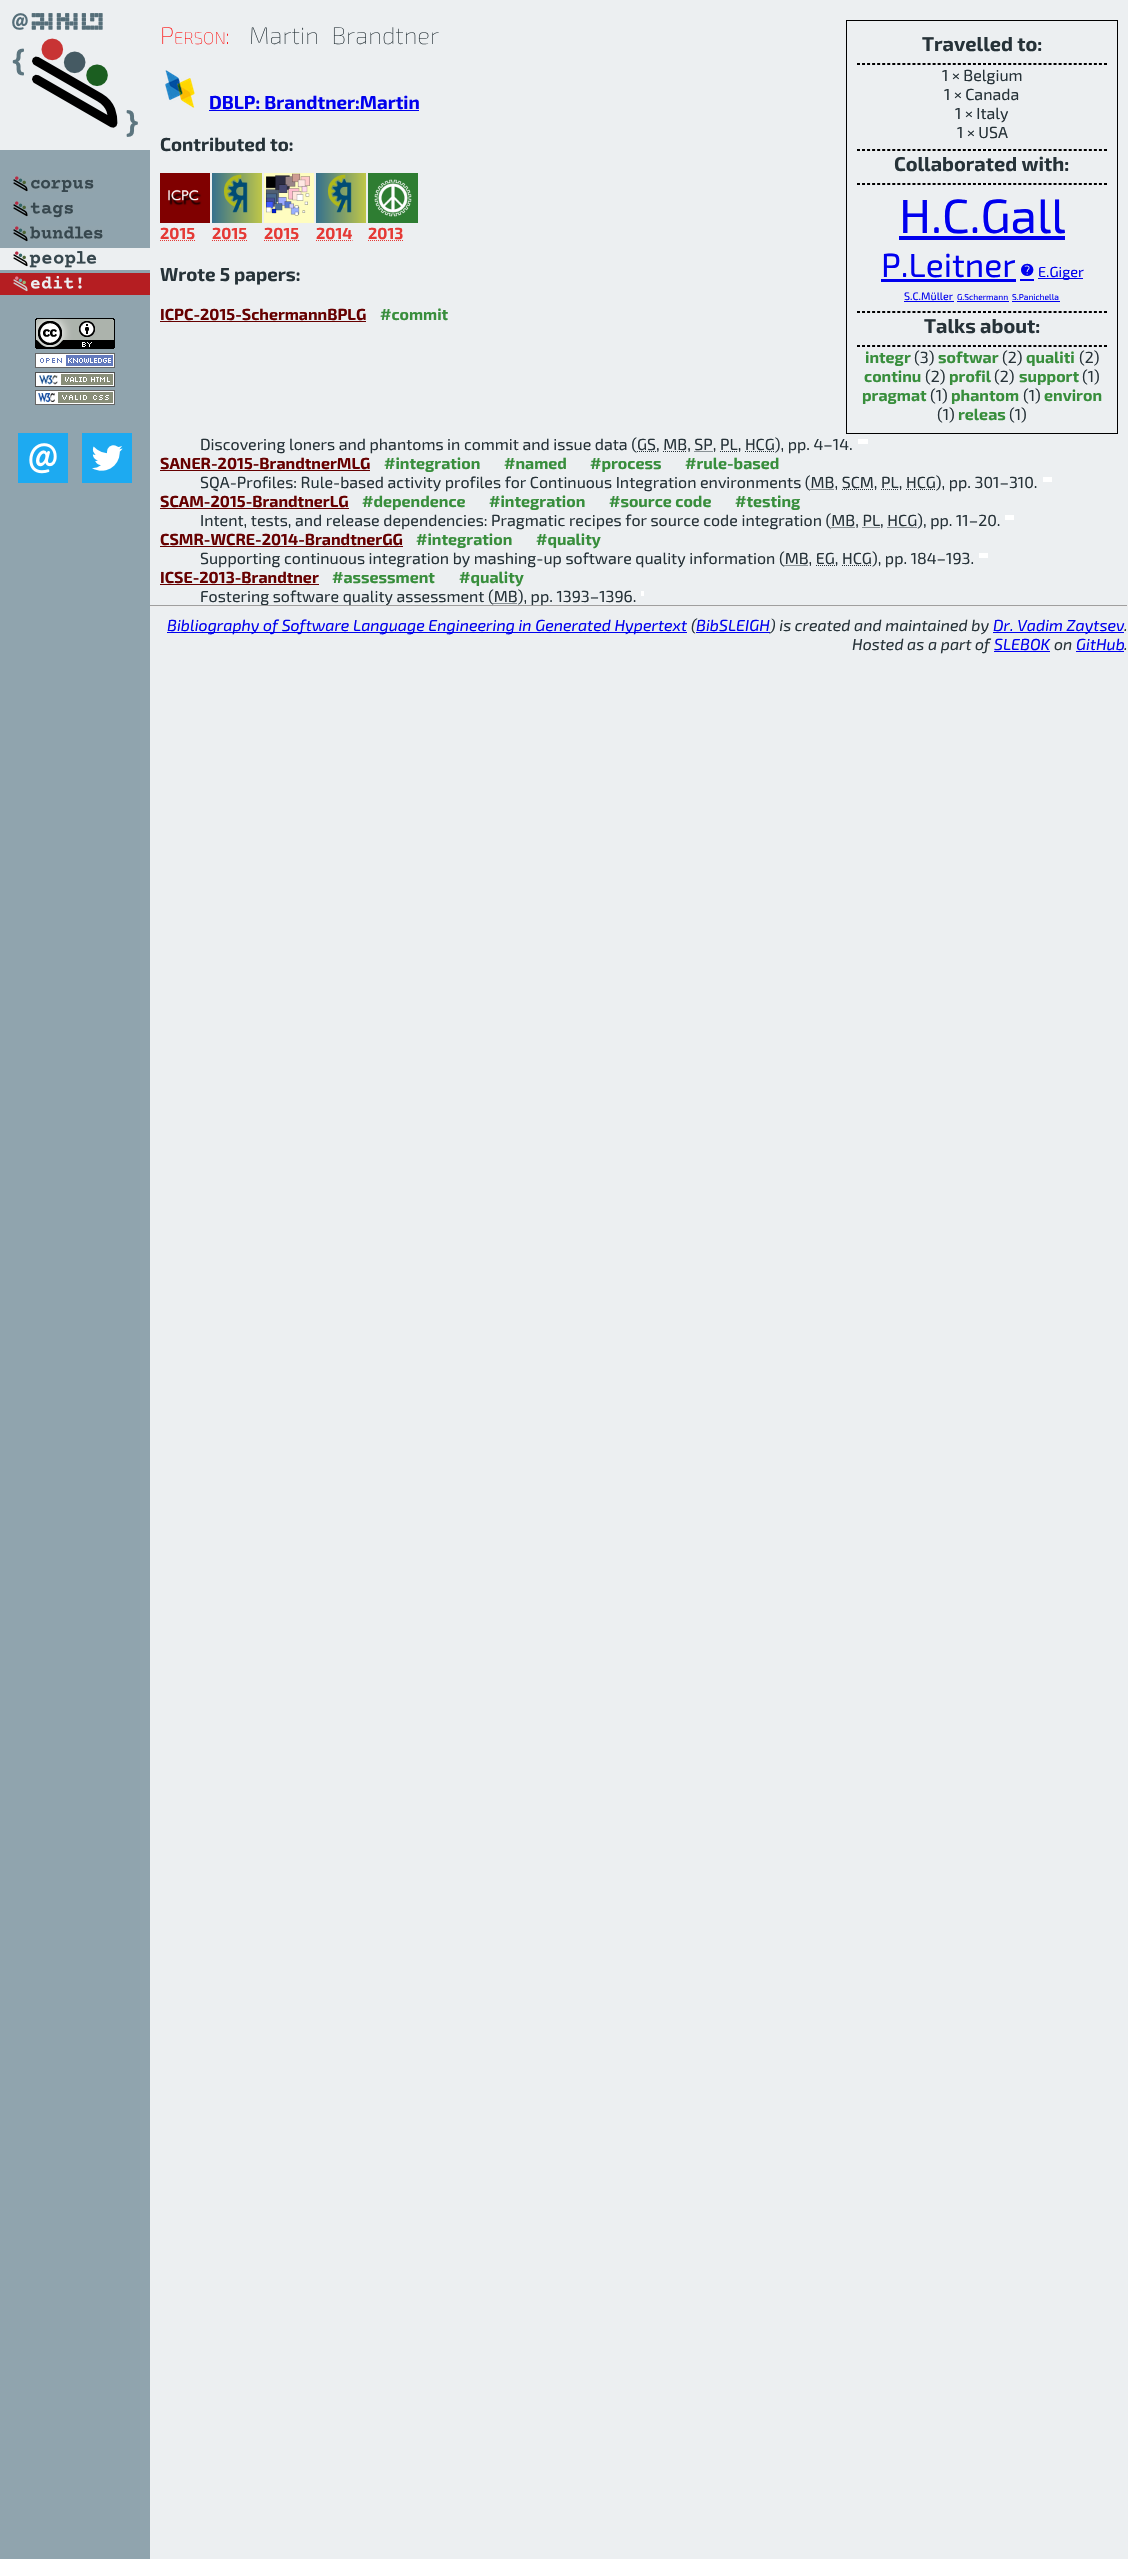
void draw(SkCanvas* canvas) {
	SkPaint fill;
	fill.setAntiAlias(true);
	auto makeFont = [&](const char* family, int weight, float size, bool italic = false) {
		SkFontStyle style(weight, SkFontStyle::kNormal_Width,
			italic ? SkFontStyle::kItalic_Slant : SkFontStyle::kUpright_Slant);
		SkFont result(fontMgr->matchFamilyStyle(family, style), size);
		result.setSubpixel(true);
		return result;
	};
	auto text = [&](const char* s, float x, float y, const SkFont& font) {
		canvas->drawString(s, x, y, font, fill);
	};
	auto spacedText = [&](const char* s, float x, float y, const SkFont& font, const SkPaint& ink, float letter, float word) {
		std::vector<SkGlyphID> glyphs(font.countText(s, strlen(s), SkTextEncoding::kUTF8));
		std::vector<float> xs(glyphs.size());
		font.textToGlyphs(s, strlen(s), SkTextEncoding::kUTF8, glyphs);
		font.getXPos(glyphs, xs, x);
		float extra = 0;
		for (size_t i = 0; i < glyphs.size(); i++) {
			xs[i] += extra;
			extra += letter + word * (glyphs[i] == font.unicharToGlyph(' '));
		}
		canvas->drawTextBlob(SkTextBlob::MakeFromPosHGlyphs(glyphs, xs, y, font), 0, 0, ink);
	};
	auto box = [&](float l, float t, float r, float b) {
		canvas->drawRect(SkRect::MakeLTRB(l, t, r, b), fill);
	};
	auto picture = [&](const char* path, float l, float t, float r, float b) {
		auto image = SkImages::DeferredFromEncodedData(SkData::MakeFromFileName(path));
		canvas->drawImageRect(image, SkRect::MakeLTRB(l, t, r, b), SkSamplingOptions());
	};
	canvas->clear(0xFFECEFF1);
	fill.setColor(0xFF90A4AE);
	box(0, 150, 150, 2559);
	picture("image0.png", 0, 0, 150, 150);
	picture("image1.png", 13, 176, 94, 192);
	picture("image2.png", 13, 201, 73, 218);
	picture("image3.png", 13, 226, 103, 242);
	picture("image4.png", 0, 248, 150, 270);
	picture("image5.png", 0, 273, 150, 295);
	picture("image6.png", 35, 318, 115, 349);
	picture("image7.png", 35, 353, 115, 368);
	picture("image8.png", 35, 372, 115, 387);
	picture("image9.png", 35, 390, 115, 405);
	picture("image10.png", 18, 433, 68, 483);
	picture("image11.png", 82, 433, 132, 483);
	fill.setStyle(SkPaint::kStroke_Style);
	fill.setStrokeWidth(1);
	fill.setColor(0xFF000000);
	canvas->drawRect(SkRect::MakeLTRB(846.5f, 20.5f, 1117.5f, 433.5f), fill);
	fill.setPathEffect(SkDashPathEffect::Make({{3, 2.04f}}, 0));
	canvas->drawPath(SkPathBuilder().moveTo(857, 63.5f).lineTo(1107, 63.5f).detach(), fill);
	fill.setPathEffect(nullptr);
	fill.setStyle(SkPaint::kFill_Style);
	box(1106, 63, 1107, 65);
	fill.setStyle(SkPaint::kStroke_Style);
	fill.setPathEffect(SkDashPathEffect::Make({{3, 2.04f}}, 0));
	canvas->drawPath(SkPathBuilder().moveTo(857, 64.5f).lineTo(1107, 64.5f).detach(), fill);
	fill.setPathEffect(nullptr);
	fill.setPathEffect(SkDashPathEffect::Make({{3, 2.04f}}, 0));
	canvas->drawPath(SkPathBuilder().moveTo(857, 149.5f).lineTo(1107, 149.5f).detach(), fill);
	fill.setPathEffect(nullptr);
	fill.setStyle(SkPaint::kFill_Style);
	box(1106, 149, 1107, 151);
	fill.setStyle(SkPaint::kStroke_Style);
	fill.setPathEffect(SkDashPathEffect::Make({{3, 2.04f}}, 0));
	canvas->drawPath(SkPathBuilder().moveTo(857, 150.5f).lineTo(1107, 150.5f).detach(), fill);
	fill.setPathEffect(nullptr);
	fill.setPathEffect(SkDashPathEffect::Make({{3, 2.04f}}, 0));
	canvas->drawPath(SkPathBuilder().moveTo(857, 183.5f).lineTo(1107, 183.5f).detach(), fill);
	fill.setPathEffect(nullptr);
	fill.setStyle(SkPaint::kFill_Style);
	box(1106, 183, 1107, 185);
	fill.setStyle(SkPaint::kStroke_Style);
	fill.setPathEffect(SkDashPathEffect::Make({{3, 2.04f}}, 0));
	canvas->drawPath(SkPathBuilder().moveTo(857, 184.5f).lineTo(1107, 184.5f).detach(), fill);
	fill.setPathEffect(nullptr);
	fill.setStyle(SkPaint::kFill_Style);
	fill.setColor(0xFF0000EE);
	box(899, 236, 1065, 240);
	box(881, 279, 1016, 282);
	box(1020, 279, 1034, 281);
	box(1038, 278, 1083, 279);
	box(904, 301, 954, 302);
	box(957, 301, 1009, 302);
	box(1012, 301, 1060, 302);
	fill.setStyle(SkPaint::kStroke_Style);
	fill.setColor(0xFF000000);
	fill.setPathEffect(SkDashPathEffect::Make({{3, 2.04f}}, 0));
	canvas->drawPath(SkPathBuilder().moveTo(857, 311.5f).lineTo(1107, 311.5f).detach(), fill);
	fill.setPathEffect(nullptr);
	fill.setStyle(SkPaint::kFill_Style);
	box(1106, 311, 1107, 313);
	fill.setStyle(SkPaint::kStroke_Style);
	fill.setPathEffect(SkDashPathEffect::Make({{3, 2.04f}}, 0));
	canvas->drawPath(SkPathBuilder().moveTo(857, 312.5f).lineTo(1107, 312.5f).detach(), fill);
	fill.setPathEffect(nullptr);
	fill.setPathEffect(SkDashPathEffect::Make({{3, 2.04f}}, 0));
	canvas->drawPath(SkPathBuilder().moveTo(857, 345.5f).lineTo(1107, 345.5f).detach(), fill);
	fill.setPathEffect(nullptr);
	fill.setStyle(SkPaint::kFill_Style);
	box(1106, 345, 1107, 347);
	fill.setStyle(SkPaint::kStroke_Style);
	fill.setPathEffect(SkDashPathEffect::Make({{3, 2.04f}}, 0));
	canvas->drawPath(SkPathBuilder().moveTo(857, 346.5f).lineTo(1107, 346.5f).detach(), fill);
	fill.setPathEffect(nullptr);
	picture("image12.png", 165, 70, 195, 108);
	fill.setStyle(SkPaint::kFill_Style);
	fill.setColor(0xFF0000EE);
	box(209, 110, 419, 111);
	picture("image13.png", 160, 173, 210, 223);
	fill.setStyle(SkPaint::kStroke_Style);
	fill.setColor(0xFFE53935);
	fill.setPathEffect(SkDashPathEffect::Make({{1, 1}}, 0));
	canvas->drawPath(SkPathBuilder().moveTo(160, 240.5f).lineTo(195, 240.5f).detach(), fill);
	fill.setPathEffect(nullptr);
	picture("image14.png", 212, 173, 262, 223);
	fill.setPathEffect(SkDashPathEffect::Make({{1, 1}}, 0));
	canvas->drawPath(SkPathBuilder().moveTo(212, 240.5f).lineTo(247, 240.5f).detach(), fill);
	fill.setPathEffect(nullptr);
	picture("image15.png", 264, 173, 314, 223);
	fill.setPathEffect(SkDashPathEffect::Make({{1, 1}}, 0));
	canvas->drawPath(SkPathBuilder().moveTo(264, 240.5f).lineTo(299, 240.5f).detach(), fill);
	fill.setPathEffect(nullptr);
	picture("image14.png", 316, 173, 366, 223);
	fill.setPathEffect(SkDashPathEffect::Make({{1, 1}}, 0));
	canvas->drawPath(SkPathBuilder().moveTo(316, 240.5f).lineTo(352.5f, 240.5f).detach(), fill);
	fill.setPathEffect(nullptr);
	picture("image16.png", 368, 173, 418, 223);
	fill.setPathEffect(SkDashPathEffect::Make({{1, 1}}, 0));
	canvas->drawPath(SkPathBuilder().moveTo(368, 240.5f).lineTo(403.5f, 240.5f).detach(), fill);
	fill.setPathEffect(nullptr);
	fill.setStyle(SkPaint::kFill_Style);
	fill.setColor(0xFF660000);
	box(160, 321, 366, 322);
	fill.setStyle(SkPaint::kStroke_Style);
	fill.setColor(0xFF263238);
	fill.setPathEffect(SkDashPathEffect::Make({{1, 1}}, 0));
	canvas->drawPath(SkPathBuilder().moveTo(637, 451.5f).lineTo(656, 451.5f).moveTo(663, 451.5f).lineTo(687, 451.5f).detach(), fill);
	fill.setPathEffect(nullptr);
	fill.setPathEffect(SkDashPathEffect::Make({{1, 1}}, 0));
	canvas->drawPath(SkPathBuilder().moveTo(694.5f, 451.5f).lineTo(713, 451.5f).moveTo(720, 451.5f).lineTo(737.5f, 451.5f).detach(), fill);
	fill.setPathEffect(nullptr);
	fill.setPathEffect(SkDashPathEffect::Make({{1, 1}}, 0));
	canvas->drawPath(SkPathBuilder().moveTo(745, 451.5f).lineTo(775, 451.5f).detach(), fill);
	fill.setPathEffect(nullptr);
	fill.setStyle(SkPaint::kFill_Style);
	fill.setColor(0xFFFFFFFF);
	box(858, 439, 868, 444);
	fill.setColor(0xFF660000);
	box(160, 470, 370, 471);
	fill.setStyle(SkPaint::kStroke_Style);
	fill.setColor(0xFF263238);
	fill.setPathEffect(SkDashPathEffect::Make({{1, 1}}, 0));
	canvas->drawPath(SkPathBuilder().moveTo(810.5f, 489.5f).lineTo(834.5f, 489.5f).moveTo(842, 489.5f).lineTo(874, 489.5f).detach(), fill);
	fill.setPathEffect(nullptr);
	fill.setPathEffect(SkDashPathEffect::Make({{1, 1}}, 0));
	canvas->drawPath(SkPathBuilder().moveTo(881, 489.5f).lineTo(899, 489.5f).moveTo(906, 489.5f).lineTo(936, 489.5f).detach(), fill);
	fill.setPathEffect(nullptr);
	fill.setStyle(SkPaint::kFill_Style);
	fill.setColor(0xFFFFFFFF);
	box(1043, 477, 1052, 482);
	fill.setColor(0xFF660000);
	box(160, 508, 349, 509);
	fill.setStyle(SkPaint::kStroke_Style);
	fill.setColor(0xFF263238);
	fill.setPathEffect(SkDashPathEffect::Make({{1, 1}}, 0));
	canvas->drawPath(SkPathBuilder().moveTo(831.5f, 527.5f).lineTo(855, 527.5f).moveTo(862.5f, 527.5f).lineTo(880, 527.5f).detach(), fill);
	fill.setPathEffect(nullptr);
	fill.setPathEffect(SkDashPathEffect::Make({{1, 1}}, 0));
	canvas->drawPath(SkPathBuilder().moveTo(887.5f, 527.5f).lineTo(917, 527.5f).detach(), fill);
	fill.setPathEffect(nullptr);
	fill.setStyle(SkPaint::kFill_Style);
	fill.setColor(0xFFFFFFFF);
	box(1005, 515, 1014, 520);
	fill.setColor(0xFF660000);
	box(160, 546, 403, 547);
	fill.setStyle(SkPaint::kStroke_Style);
	fill.setColor(0xFF263238);
	fill.setPathEffect(SkDashPathEffect::Make({{1, 1}}, 0));
	canvas->drawPath(SkPathBuilder().moveTo(784.5f, 565.5f).lineTo(808.5f, 565.5f).moveTo(816, 565.5f).lineTo(835, 565.5f).detach(), fill);
	fill.setPathEffect(nullptr);
	fill.setPathEffect(SkDashPathEffect::Make({{1, 1}}, 0));
	canvas->drawPath(SkPathBuilder().moveTo(842, 565.5f).lineTo(872, 565.5f).detach(), fill);
	fill.setPathEffect(nullptr);
	fill.setStyle(SkPaint::kFill_Style);
	fill.setColor(0xFFFFFFFF);
	box(979, 553, 988, 558);
	fill.setColor(0xFF660000);
	box(160, 584, 319, 585);
	fill.setStyle(SkPaint::kStroke_Style);
	fill.setColor(0xFF263238);
	fill.setPathEffect(SkDashPathEffect::Make({{1, 1}}, 0));
	canvas->drawPath(SkPathBuilder().moveTo(493.5f, 603.5f).lineTo(517.5f, 603.5f).detach(), fill);
	fill.setPathEffect(nullptr);
	fill.setStyle(SkPaint::kFill_Style);
	fill.setColor(0xFFFFFFFF);
	box(641, 591, 644, 596);
	fill.setColor(0xFF0000EE);
	box(167, 632, 687, 633);
	box(993, 632, 1124, 633);
	box(994, 651, 1050, 652);
	box(1076, 651, 1124, 652);
	auto font1 = makeFont("Exo 2", 100, 24);
	fill.setColor(0xFFFF0000);
	text("P", 160, 44, font1);
	auto font2 = makeFont("Exo 2", 100, 17);
	text("ERSON", 174, 44, font2);
	text(":", 225, 44, font1);
	fill.setColor(0xFF263238);
	spacedText("Martin Brandtner", 249, 44, font1, fill, 0, 7);
	auto font3 = makeFont("Exo 2", 700, 20);
	text("Travelled to:", 922, 51, font3);
	auto font4 = makeFont("Exo 2", 400, 16);
	text("1 × Belgium", 942, 81, font4);
	text("1 × Canada", 944, 100, font4);
	text("1 × Italy", 955, 119, font4);
	text("1 × USA", 957, 138, font4);
	text("Collaborated with:", 894, 171, font3);
	auto font5 = makeFont("Exo 2", 400, 48);
	fill.setColor(0xFF0000EE);
	text("H.C.Gall", 899, 233, font5);
	auto font6 = makeFont("Exo 2", 400, 33.5f);
	text("P.Leitner", 881, 277, font6);
	auto font7 = makeFont("Exo 2", 400, 21);
	text("∅", 1020, 277, font7);
	auto font8 = makeFont("Exo 2", 400, 14.5f);
	text("E.Giger", 1038, 277, font8);
	auto font9 = makeFont("Exo 2", 400, 10.75f);
	text("S.C.Müller", 904, 300, font9);
	auto font10 = makeFont("Exo 2", 400, 8.5f);
	text("G.Schermann", 957, 300, font10);
	text("S.Panichella", 1012, 300, font10);
	fill.setColor(0xFF263238);
	text("Talks about:", 924, 333, font3);
	auto font11 = makeFont("Exo 2", 700, 16);
	fill.setColor(0xFF388E3C);
	text("integr", 865, 363, font11);
	fill.setColor(0xFF263238);
	text("(3)", 914, 363, font4);
	fill.setColor(0xFF388E3C);
	text("softwar", 938, 363, font11);
	fill.setColor(0xFF263238);
	text("(2)", 1002, 363, font4);
	fill.setColor(0xFF388E3C);
	text("qualiti", 1026, 363, font11);
	fill.setColor(0xFF263238);
	text("(2)", 1079, 363, font4);
	fill.setColor(0xFF388E3C);
	text("continu", 864, 382, font11);
	fill.setColor(0xFF263238);
	text("(2)", 925, 382, font4);
	fill.setColor(0xFF388E3C);
	text("profil", 949, 382, font11);
	fill.setColor(0xFF263238);
	text("(2)", 994, 382, font4);
	fill.setColor(0xFF388E3C);
	text("support", 1019, 382, font11);
	fill.setColor(0xFF263238);
	text("(1)", 1082, 382, font4);
	fill.setColor(0xFF388E3C);
	text("pragmat", 862, 401, font11);
	fill.setColor(0xFF263238);
	text("(1)", 930, 401, font4);
	fill.setColor(0xFF388E3C);
	text("phantom", 951, 401, font11);
	fill.setColor(0xFF263238);
	text("(1)", 1023, 401, font4);
	fill.setColor(0xFF388E3C);
	text("environ", 1044, 401, font11);
	fill.setColor(0xFF263238);
	text("(1)", 937, 420, font4);
	fill.setColor(0xFF388E3C);
	text("releas", 958, 420, font11);
	fill.setColor(0xFF263238);
	text("(1)", 1009, 420, font4);
	auto font12 = makeFont("Exo 2", 700, 18.75f);
	fill.setColor(0xFF0000EE);
	text("DBLP: Brandtner:Martin", 209, 109, font12);
	fill.setColor(0xFF263238);
	text("Contributed to:", 160, 151, font12);
	fill.setColor(0xFFE53935);
	text("2015", 160, 239, font11);
	text("2015", 212, 239, font11);
	text("2015", 264, 239, font11);
	text("2014", 316, 239, font11);
	text("2013", 368, 239, font11);
	fill.setColor(0xFF263238);
	text("Wrote 5 papers:", 160, 281, font12);
	fill.setColor(0xFF660000);
	text("ICPC-2015-SchermannBPLG", 160, 320, font11);
	fill.setColor(0xFF388E3C);
	text("#commit", 380, 320, font11);
	fill.setColor(0xFF263238);
	text("Discovering loners and phantoms in commit and issue data (GS, MB, SP, PL, HCG), pp. 4–14.", 200, 450, font4);
	fill.setColor(0xFF660000);
	text("SANER-2015-BrandtnerMLG", 160, 469, font11);
	fill.setColor(0xFF388E3C);
	text("#integration", 384, 469, font11);
	text("#named", 504, 469, font11);
	text("#process", 590, 469, font11);
	text("#rule-based", 685, 469, font11);
	fill.setColor(0xFF263238);
	text("SQA-Profiles: Rule-based activity profiles for Continuous Integration environments (MB, SCM, PL, HCG), pp. 301–310.", 200, 488, font4);
	fill.setColor(0xFF660000);
	text("SCAM-2015-BrandtnerLG", 160, 507, font11);
	fill.setColor(0xFF388E3C);
	text("#dependence", 362, 507, font11);
	text("#integration", 489, 507, font11);
	text("#source code", 609, 507, font11);
	text("#testing", 735, 507, font11);
	fill.setColor(0xFF263238);
	text("Intent, tests, and release dependencies: Pragmatic recipes for source code integration (MB, PL, HCG), pp. 11–20.", 200, 526, font4);
	fill.setColor(0xFF660000);
	text("CSMR-WCRE-2014-BrandtnerGG", 160, 545, font11);
	fill.setColor(0xFF388E3C);
	text("#integration", 416, 545, font11);
	text("#quality", 536, 545, font11);
	fill.setColor(0xFF263238);
	text("Supporting continuous integration by mashing-up software quality information (MB, EG, HCG), pp. 184–193.", 200, 564, font4);
	fill.setColor(0xFF660000);
	text("ICSE-2013-Brandtner", 160, 583, font11);
	fill.setColor(0xFF388E3C);
	text("#assessment", 332, 583, font11);
	text("#quality", 459, 583, font11);
	fill.setColor(0xFF263238);
	text("Fostering software quality assessment (MB), pp. 1393–1396.", 200, 602, font4);
	fill.setColor(0xFF9F9F9F);
	box(150, 605, 1128, 606);
	fill.setColor(0xFFEEEEEE);
	box(1127, 605, 1128, 607);
	box(150, 606, 1128, 607);
	auto font13 = makeFont("Exo 2", 400, 16, true);
	fill.setColor(0xFF0000EE);
	text("Bibliography of Software Language Engineering in Generated Hypertext", 167, 631, font13);
	fill.setColor(0xFF263238);
	text("(", 691, 631, font13);
	fill.setColor(0xFF0000EE);
	text("BibSLEIGH", 696, 631, font13);
	box(696, 632, 770, 633);
	fill.setColor(0xFF263238);
	text(") is created and maintained by", 770, 631, font13);
	fill.setColor(0xFF0000EE);
	text("Dr. Vadim Zaytsev", 993, 631, font13);
	fill.setColor(0xFF263238);
	text(".", 1124, 631, font13);
	text("Hosted as a part of", 852, 650, font13);
	fill.setColor(0xFF0000EE);
	text("SLEBOK", 994, 650, font13);
	fill.setColor(0xFF263238);
	text("on", 1054, 650, font13);
	fill.setColor(0xFF0000EE);
	text("GitHub", 1076, 650, font13);
	fill.setColor(0xFF263238);
	text(".", 1124, 650, font13);
}
